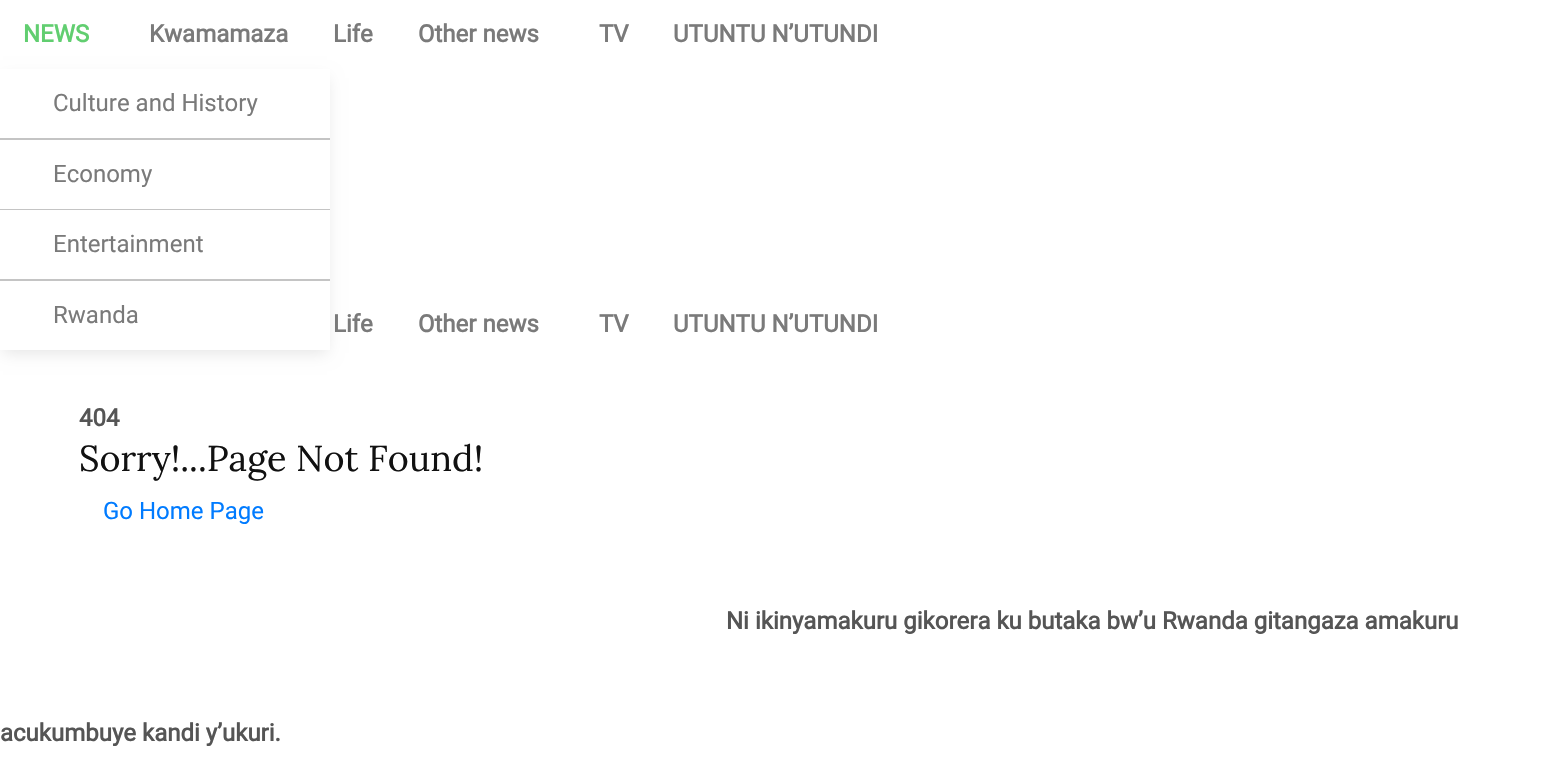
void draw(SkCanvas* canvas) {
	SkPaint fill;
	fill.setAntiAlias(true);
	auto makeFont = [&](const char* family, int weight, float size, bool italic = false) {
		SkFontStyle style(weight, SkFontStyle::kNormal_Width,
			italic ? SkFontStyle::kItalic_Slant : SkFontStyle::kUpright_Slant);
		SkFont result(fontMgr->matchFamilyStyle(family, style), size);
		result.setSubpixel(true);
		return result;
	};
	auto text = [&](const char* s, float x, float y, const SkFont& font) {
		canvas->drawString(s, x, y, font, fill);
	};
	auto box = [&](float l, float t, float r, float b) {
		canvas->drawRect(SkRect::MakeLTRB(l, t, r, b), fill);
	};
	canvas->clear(0xFFFFFFFF);
	fill.setColor(0x1A000000);
	fill.setMaskFilter(SkMaskFilter::MakeBlur(kNormal_SkBlurStyle, 7.5f));
	canvas->drawRect(SkRect::MakeLTRB(3, 78, 327, 353), fill);
	fill.setMaskFilter(nullptr);
	fill.setColor(0xFFFFFFFF);
	box(0, 69, 330, 350);
	fill.setColor(0xFFC4C4C4);
	box(0, 138, 330, 140);
	box(0, 209, 330, 210);
	box(0, 279, 330, 281);
	auto font1 = makeFont("Roboto", 700, 24);
	fill.setColor(0xFF61CE70);
	text("NEWS", 23, 42, font1);
	auto font2 = makeFont("Roboto", 400, 24);
	fill.setColor(0xFF7A7A7A);
	text("Culture and History", 53, 111, font2);
	text("Economy", 53, 182, font2);
	text("Entertainment", 53, 252, font2);
	text("Rwanda", 53, 323, font2);
	text("Life", 333, 42, font1);
	text("Kwamamaza", 149, 42, font1);
	text("Other news", 418, 42, font1);
	text("TV", 599, 42, font1);
	text("UTUNTU N’UTUNDI", 673, 42, font1);
	text("Life", 333, 332, font1);
	text("Other news", 418, 332, font1);
	text("TV", 599, 332, font1);
	text("UTUNTU N’UTUNDI", 673, 332, font1);
	fill.setColor(0xFF555555);
	text("404", 79, 426, font1);
	auto font3 = makeFont("Lora", 400, 36);
	fill.setColor(0xFF111111);
	text("Sorry!...Page Not Found!", 79, 471, font3);
	fill.setColor(0xFF007BFF);
	text("Go Home Page", 103, 519, font2);
	fill.setColor(0xFF555555);
	text("Ni ikinyamakuru gikorera ku butaka bw’u Rwanda gitangaza amakuru", 726, 629, font1);
	text("acukumbuye kandi y’ukuri.", 0, 741, font1);
}
